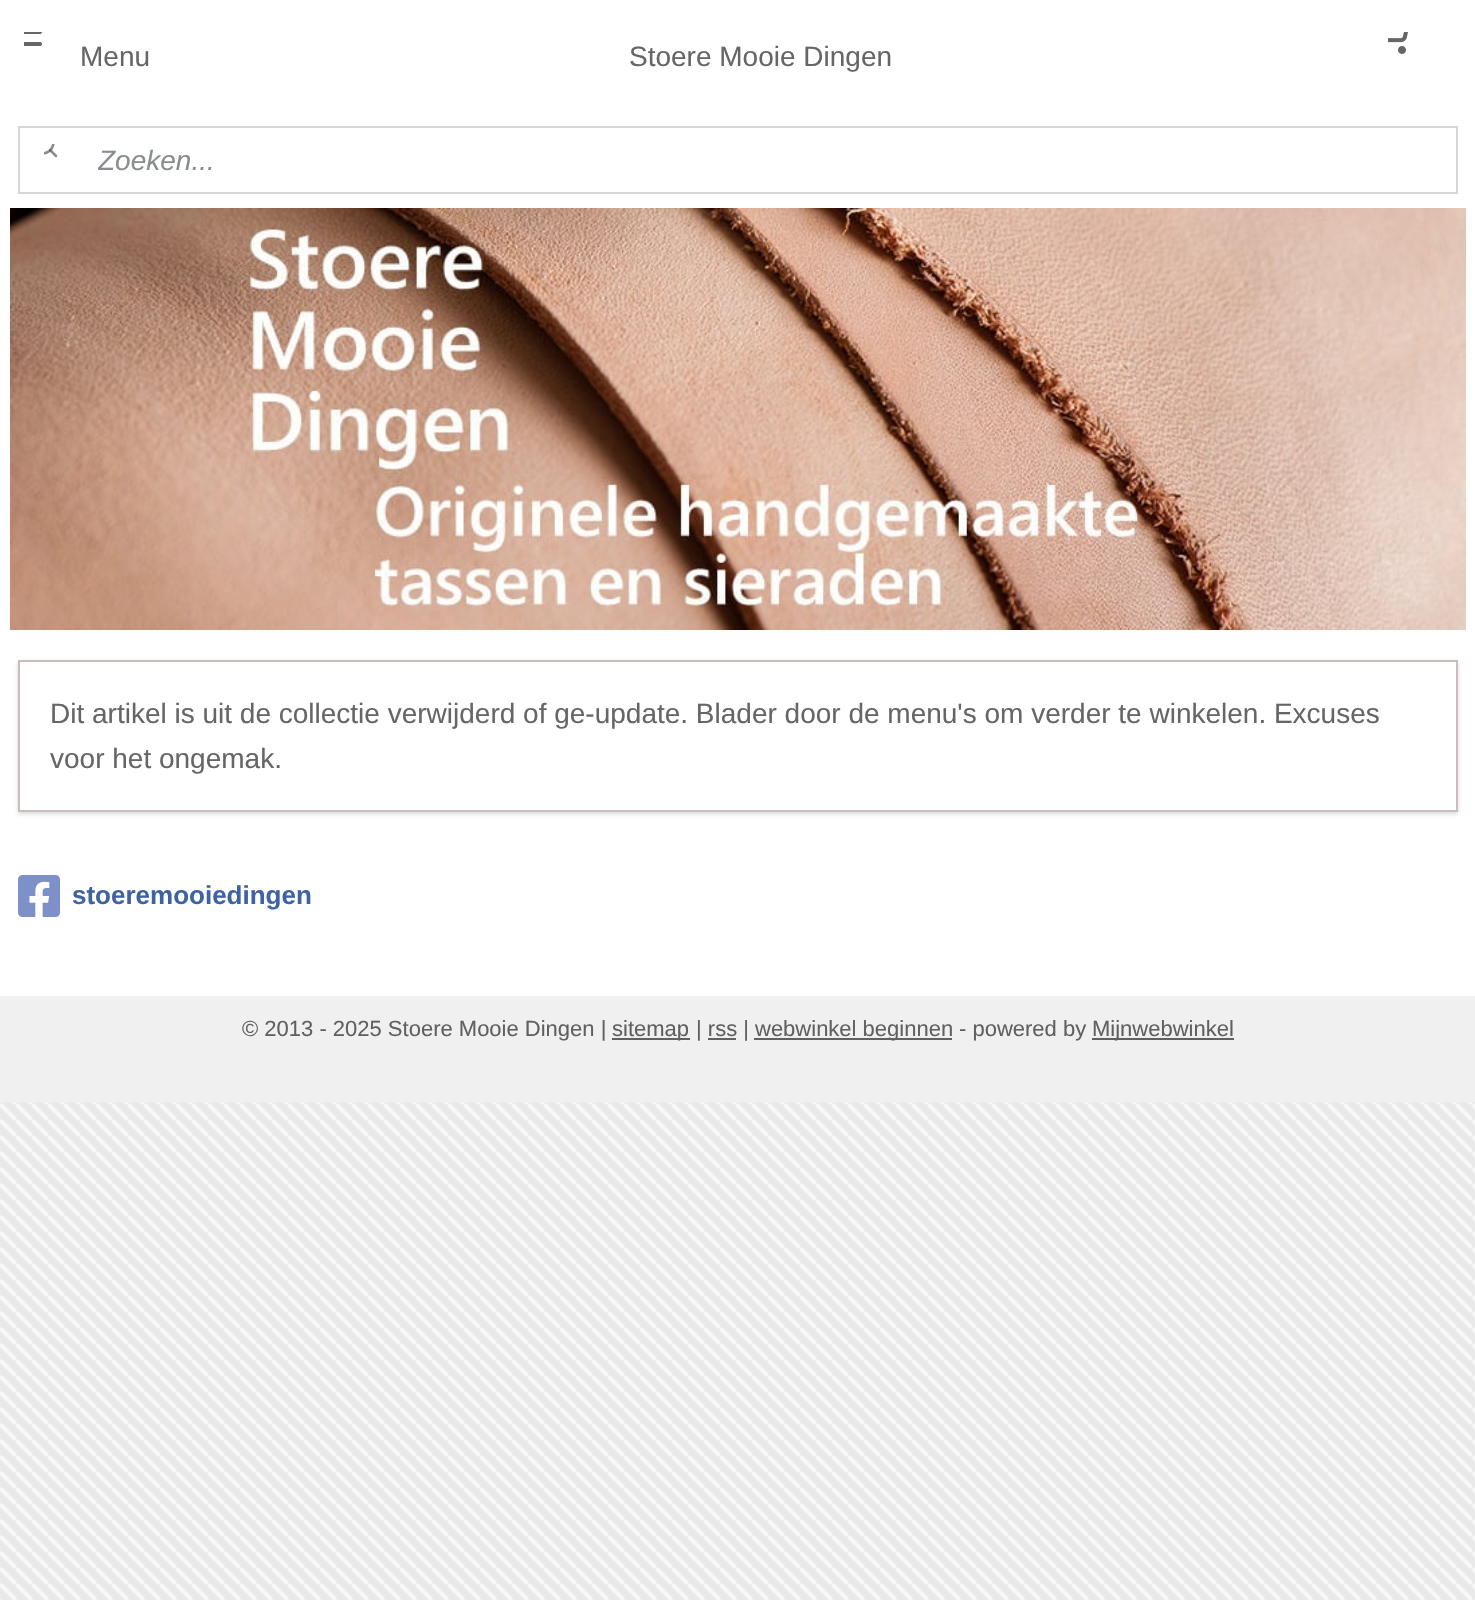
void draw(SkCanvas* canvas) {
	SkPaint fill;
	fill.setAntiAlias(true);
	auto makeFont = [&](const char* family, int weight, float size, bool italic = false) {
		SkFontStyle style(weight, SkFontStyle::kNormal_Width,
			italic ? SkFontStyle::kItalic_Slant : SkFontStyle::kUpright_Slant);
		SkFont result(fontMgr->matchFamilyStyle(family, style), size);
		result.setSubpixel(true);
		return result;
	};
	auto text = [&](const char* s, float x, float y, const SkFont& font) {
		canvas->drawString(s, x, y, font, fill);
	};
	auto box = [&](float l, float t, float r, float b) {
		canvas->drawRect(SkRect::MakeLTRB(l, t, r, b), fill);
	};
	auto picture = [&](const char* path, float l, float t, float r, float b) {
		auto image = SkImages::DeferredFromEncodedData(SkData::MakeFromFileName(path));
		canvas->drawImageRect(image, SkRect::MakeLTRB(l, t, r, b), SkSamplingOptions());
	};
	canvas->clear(0xFFFFFFFF);
	picture("image0.png", 24, 32, 42, 46);
	picture("image1.png", 1388, 32, 1408, 54);
	fill.setStyle(SkPaint::kStroke_Style);
	fill.setStrokeWidth(2);
	fill.setColor(0xFFD3D5D9);
	canvas->drawRect(SkRect::MakeLTRB(19, 127, 1457, 193), fill);
	picture("image2.png", 44, 144, 58, 158);
	picture("image3.png", 10, 208, 1466, 630);
	canvas->save();
	canvas->clipPath(SkPathBuilder(SkPathFillType::kEvenOdd).moveTo(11, 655).lineTo(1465, 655).lineTo(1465, 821).lineTo(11, 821).close().moveTo(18, 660).lineTo(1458, 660).lineTo(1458, 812).lineTo(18, 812).close().detach(), true);
	fill.setStyle(SkPaint::kFill_Style);
	fill.setColor(0x26000000);
	fill.setMaskFilter(SkMaskFilter::MakeBlur(kNormal_SkBlurStyle, 2));
	canvas->drawRect(SkRect::MakeLTRB(18, 662, 1458, 814), fill);
	fill.setMaskFilter(nullptr);
	canvas->restore();
	fill.setStyle(SkPaint::kStroke_Style);
	fill.setColor(0xFFCABEBD);
	canvas->drawRect(SkRect::MakeLTRB(19, 661, 1457, 811), fill);
	picture("image4.png", 18, 875, 60, 917);
	picture("image5.png", 0, 1102, 1475, 1600);
	fill.setStyle(SkPaint::kFill_Style);
	fill.setColor(0xFFF0F0F0);
	box(0, 996, 1475, 1102);
	fill.setColor(0xFF606060);
	box(612, 1038, 690, 1040);
	box(754, 1038, 952, 1040);
	box(1092, 1038, 1234, 1040);
	box(708, 1038, 736, 1040);
	auto font1 = makeFont("Liberation Sans", 400, 28);
	fill.setColor(0xFF666666);
	text("Menu", 80, 66, font1);
	text("Stoere Mooie Dingen", 629, 66, font1);
	canvas->save();
	canvas->clipRect(SkRect::MakeLTRB(98, 144, 1434, 176));
	auto font2 = makeFont("Liberation Sans", 400, 28, true);
	fill.setColor(0xFF898C91);
	text("Zoeken...", 98, 170, font2);
	canvas->restore();
	fill.setColor(0xFF666666);
	text("Dit artikel is uit de collectie verwijderd of ge-update. Blader door de menu's om verder te winkelen. Excuses", 50, 723, font1);
	text("voor het ongemak.", 50, 768, font1);
	auto font3 = makeFont("Liberation Sans", 700, 26);
	fill.setColor(0xFF4062A3);
	text("stoeremooiedingen", 72, 904, font3);
	auto font4 = makeFont("Liberation Sans", 400, 22);
	fill.setColor(0xFF606060);
	text("© 2013 - 2025 Stoere Mooie Dingen |", 242, 1036, font4);
	text("sitemap", 612, 1036, font4);
	text("| rss |", 696, 1036, font4);
	text("webwinkel beginnen", 755, 1036, font4);
	text("- powered by", 959, 1036, font4);
	text("Mijnwebwinkel", 1092, 1036, font4);
}
